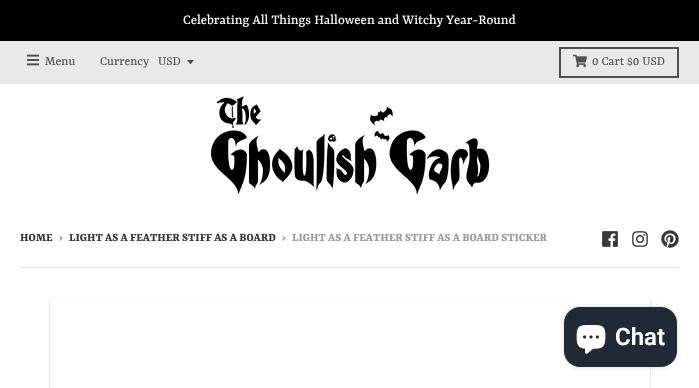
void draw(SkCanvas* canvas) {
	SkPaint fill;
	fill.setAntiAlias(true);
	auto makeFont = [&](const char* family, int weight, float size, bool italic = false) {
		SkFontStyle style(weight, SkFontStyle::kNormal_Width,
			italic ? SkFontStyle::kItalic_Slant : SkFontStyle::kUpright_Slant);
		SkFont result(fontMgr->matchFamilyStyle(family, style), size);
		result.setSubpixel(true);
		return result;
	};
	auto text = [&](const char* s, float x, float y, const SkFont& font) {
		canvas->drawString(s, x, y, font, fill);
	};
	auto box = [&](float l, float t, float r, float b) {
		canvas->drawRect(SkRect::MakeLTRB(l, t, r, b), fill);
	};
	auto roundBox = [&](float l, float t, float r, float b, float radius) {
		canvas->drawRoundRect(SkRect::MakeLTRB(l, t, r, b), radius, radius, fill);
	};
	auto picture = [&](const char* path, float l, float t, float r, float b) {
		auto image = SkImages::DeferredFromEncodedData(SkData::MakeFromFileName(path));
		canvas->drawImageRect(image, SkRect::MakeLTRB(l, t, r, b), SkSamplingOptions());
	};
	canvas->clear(0xFFFFFFFF);
	fill.setColor(0xFF000000);
	box(0, 0, 699, 41);
	fill.setColor(0xFFE9E9E9);
	box(0, 41, 699, 84);
	picture("image0.png", 26, 54, 40, 66);
	fill.setColor(0xFF505050);
	canvas->drawPath(SkPathBuilder().moveTo(187, 60).cubicTo(191.5f, 65.5f, 189.5f, 65.5f, 194, 60).close().detach(), fill);
	fill.setStyle(SkPaint::kStroke_Style);
	fill.setStrokeWidth(2);
	canvas->drawRect(SkRect::MakeLTRB(560, 48, 678, 77), fill);
	picture("image1.png", 573, 54, 587, 68);
	picture("image2.png", 210, 96, 490, 196);
	picture("image3.png", 602, 231, 618, 247);
	picture("image4.png", 632, 231, 648, 247);
	picture("image5.png", 661, 230, 679, 248);
	fill.setStyle(SkPaint::kFill_Style);
	fill.setColor(0xFFE5E5E5);
	box(20, 267, 679, 268);
	canvas->save();
	canvas->clipPath(SkPathBuilder(SkPathFillType::kEvenOdd).moveTo(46, 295).lineTo(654, 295).lineTo(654, 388).lineTo(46, 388).close().moveTo(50, 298).lineTo(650, 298).lineTo(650, 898).lineTo(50, 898).close().detach(), true);
	fill.setColor(0x33000000);
	fill.setMaskFilter(SkMaskFilter::MakeBlur(kNormal_SkBlurStyle, 1));
	canvas->drawRect(SkRect::MakeLTRB(50, 299, 650, 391), fill);
	fill.setMaskFilter(nullptr);
	canvas->restore();
	fill.setColor(0x26000000);
	fill.setMaskFilter(SkMaskFilter::MakeBlur(kNormal_SkBlurStyle, 2.5f));
	canvas->drawRoundRect(SkRect::MakeLTRB(564, 307, 677, 367), 16, 16, fill);
	fill.setMaskFilter(nullptr);
	fill.setColor(0xFF202A36);
	roundBox(564, 307, 677, 367, 16);
	picture("image6.png", 576, 325, 606, 354);
	auto font1 = makeFont("Rasa", 400, 14.6f);
	fill.setColor(0xFFFFFFFF);
	text("Celebrating All Things Halloween and Witchy Year-Round", 183, 24, font1);
	auto font2 = makeFont("Rasa", 400, 13.5f);
	fill.setColor(0xFF505050);
	text("Menu", 45, 65, font2);
	text("Currency", 100, 65, font2);
	text("USD", 158, 65, font2);
	text("0 Cart $0 USD", 592, 65, font2);
	auto font3 = makeFont("Rasa", 700, 12.4f);
	fill.setColor(0xFF383838);
	text("HOME", 20, 241, font3);
	fill.setColor(0xFF9B9B9B);
	text("›", 59, 241, font3);
	fill.setColor(0xFF383838);
	text("LIGHT AS A FEATHER STIFF AS A BOARD", 69, 241, font3);
	fill.setColor(0xFF9B9B9B);
	text("›", 282, 241, font3);
	text("LIGHT AS A FEATHER STIFF AS A BOARD STICKER", 292, 241, font3);
	auto font4 = makeFont("Roboto", 600, 24);
	fill.setColor(0xFFFFFFFF);
	text("Chat", 615, 345, font4);
}
